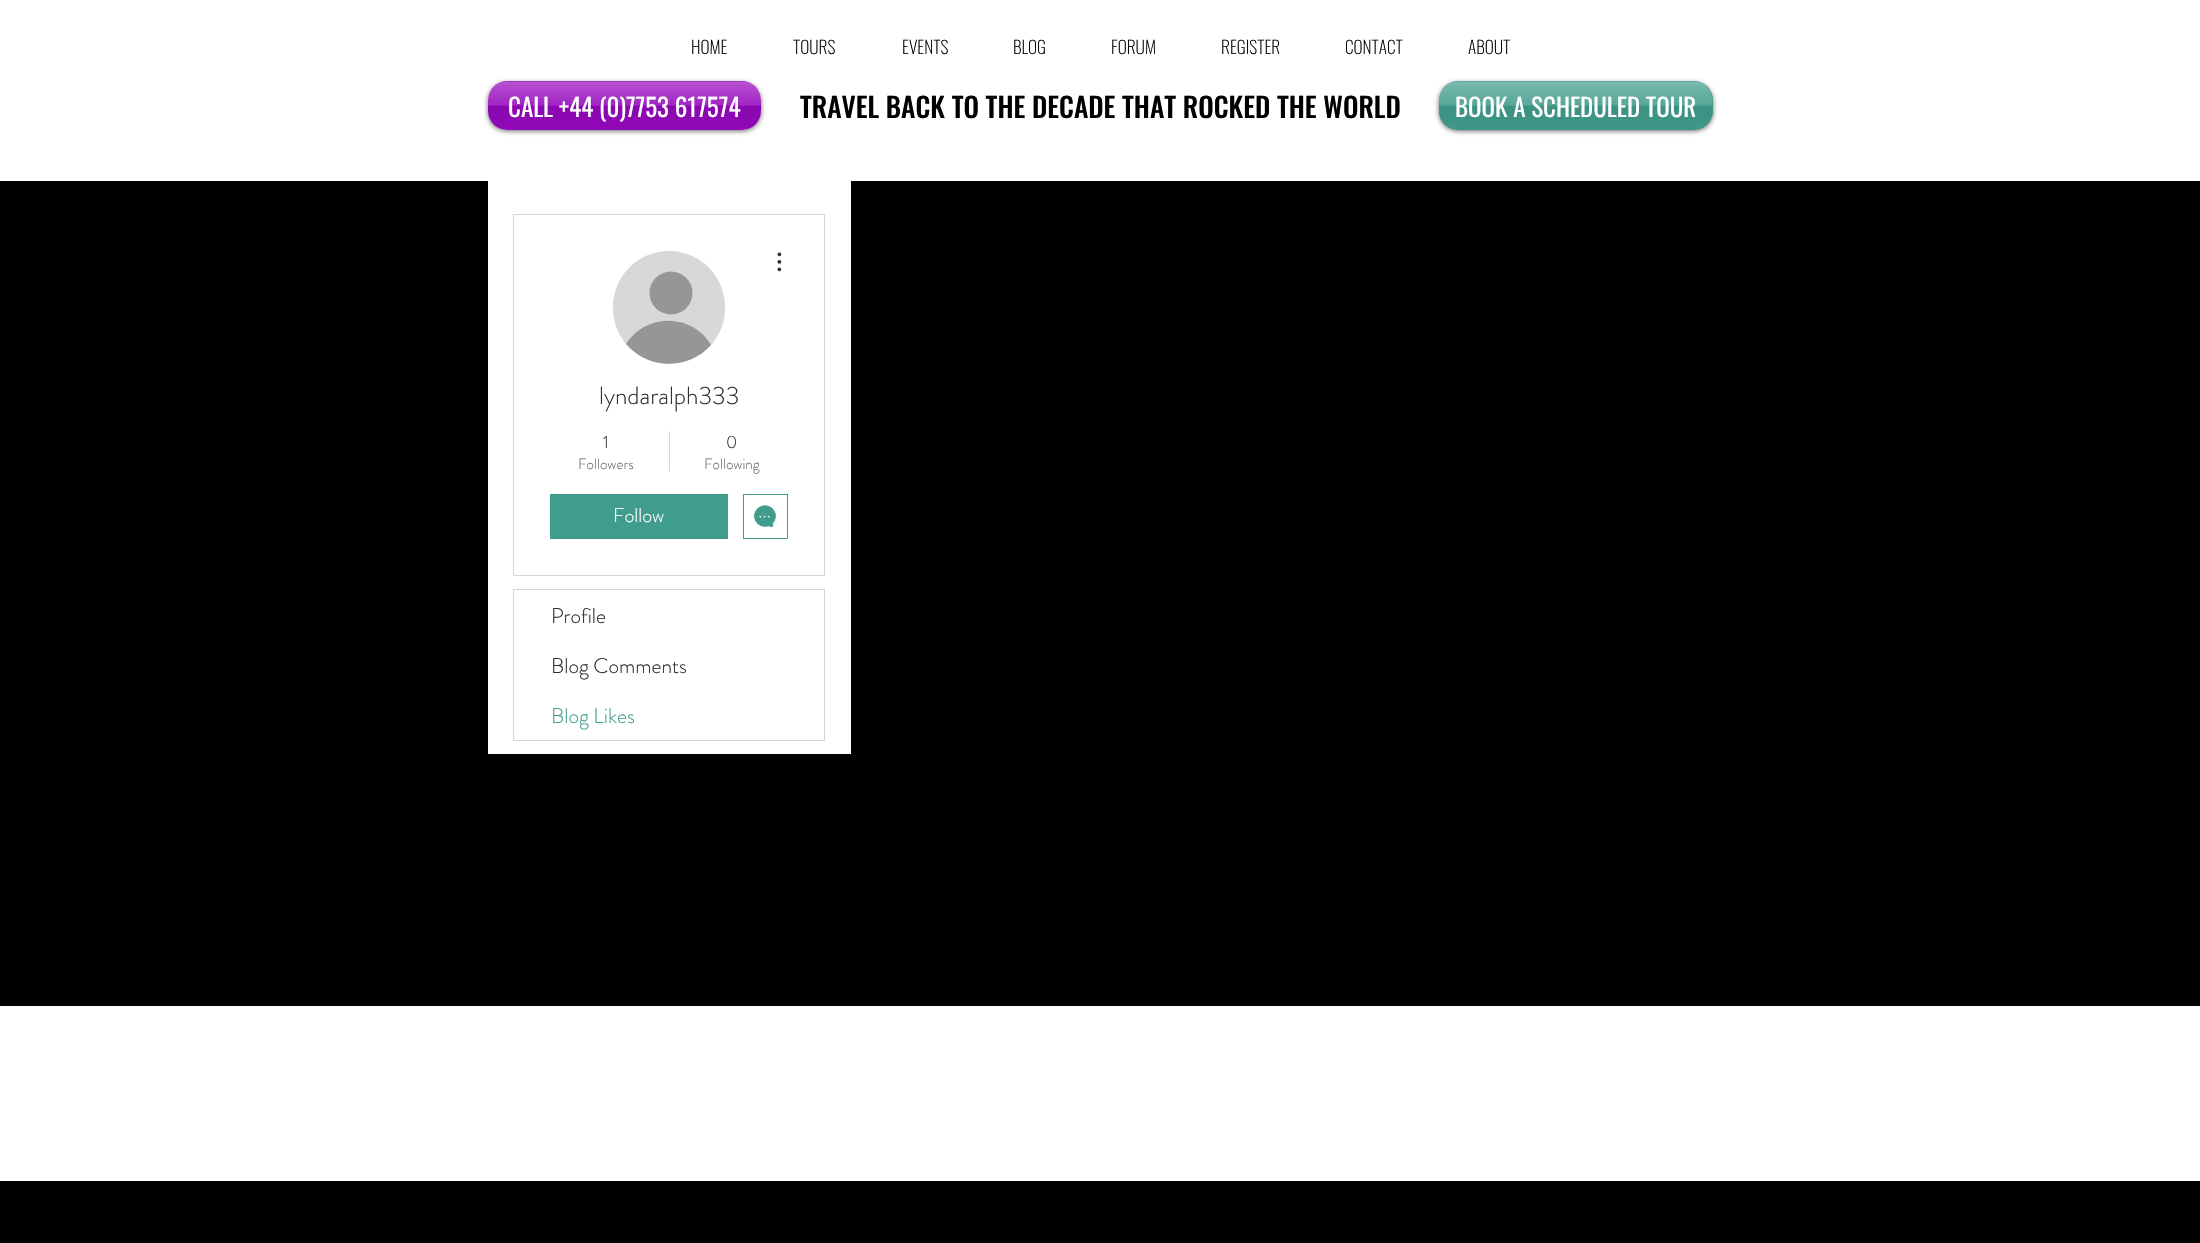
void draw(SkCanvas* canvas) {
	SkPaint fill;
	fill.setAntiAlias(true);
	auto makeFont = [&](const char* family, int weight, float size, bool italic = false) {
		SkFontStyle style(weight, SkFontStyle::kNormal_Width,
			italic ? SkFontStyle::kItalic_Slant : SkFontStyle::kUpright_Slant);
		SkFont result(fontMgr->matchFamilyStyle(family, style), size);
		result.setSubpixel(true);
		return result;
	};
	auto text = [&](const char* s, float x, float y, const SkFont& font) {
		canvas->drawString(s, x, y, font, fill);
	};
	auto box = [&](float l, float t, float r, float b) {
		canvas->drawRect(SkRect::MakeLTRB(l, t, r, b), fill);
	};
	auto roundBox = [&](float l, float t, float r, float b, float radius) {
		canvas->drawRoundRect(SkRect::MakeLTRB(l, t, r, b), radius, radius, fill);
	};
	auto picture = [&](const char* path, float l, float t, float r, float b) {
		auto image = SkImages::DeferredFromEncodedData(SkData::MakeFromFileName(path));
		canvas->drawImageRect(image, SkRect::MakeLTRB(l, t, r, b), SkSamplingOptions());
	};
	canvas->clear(0xFF000000);
	fill.setColor(0xFFFFFFFF);
	box(0, 0, 2200, 181);
	canvas->save();
	canvas->clipPath(SkPathBuilder(SkPathFillType::kEvenOdd).moveTo(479, 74).lineTo(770, 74).lineTo(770, 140).lineTo(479, 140).close().moveTo(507, 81).lineTo(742, 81).cubicTo(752.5f, 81, 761, 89.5f, 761, 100).lineTo(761, 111).cubicTo(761, 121.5f, 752.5f, 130, 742, 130).lineTo(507, 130).cubicTo(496.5f, 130, 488, 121.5f, 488, 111).lineTo(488, 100).cubicTo(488, 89.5f, 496.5f, 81, 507, 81).close().detach(), true);
	fill.setColor(0x99000000);
	fill.setMaskFilter(SkMaskFilter::MakeBlur(kNormal_SkBlurStyle, 2.5f));
	canvas->drawRoundRect(SkRect::MakeLTRB(488, 83, 761, 131), 19, 19, fill);
	fill.setMaskFilter(nullptr);
	canvas->restore();
	fill.setColor(0xFA9303BC);
	roundBox(488, 81, 761, 130, 19);
	picture("image0.png", 488, 81, 761, 130);
	fill.setColor(0x99000000);
	fill.setMaskFilter(SkMaskFilter::MakeBlur(kNormal_SkBlurStyle, 2.5f));
	canvas->drawRoundRect(SkRect::MakeLTRB(1439, 83, 1713, 131), 19, 19, fill);
	fill.setMaskFilter(nullptr);
	fill.setColor(0xFF409C8C);
	roundBox(1439, 81, 1713, 130, 19);
	picture("image1.png", 1439, 81, 1713, 130);
	fill.setColor(0xFFFFFFFF);
	box(488, 181, 851, 754);
	fill.setStyle(SkPaint::kStroke_Style);
	fill.setStrokeWidth(1);
	fill.setColor(0xFFD5D5D6);
	canvas->drawRect(SkRect::MakeLTRB(513.5f, 214.5f, 824.5f, 575.5f), fill);
	fill.setStyle(SkPaint::kFill_Style);
	fill.setColor(0xFFD8D8D8);
	roundBox(613, 251, 725, 364, 56);
	fill.setColor(0xFF969696);
	canvas->drawCircle(671, 293, 21.5f, fill);
	canvas->drawPath(SkPathBuilder().moveTo(711, 345).cubicTo(689, 370, 648, 370, 626, 344).cubicTo(646, 313, 692, 313, 711, 345).close().detach(), fill);
	picture("image2.png", 777, 252, 782, 272);
	fill.setColor(0xFFD5D5D6);
	box(669, 431, 670, 471);
	fill.setColor(0xFF409C8C);
	box(550, 494, 728, 539);
	fill.setStyle(SkPaint::kStroke_Style);
	canvas->drawRect(SkRect::MakeLTRB(743.5f, 494.5f, 787.5f, 538.5f), fill);
	picture("image3.png", 754, 505, 776, 528);
	fill.setColor(0xFFD5D5D6);
	canvas->drawRect(SkRect::MakeLTRB(513.5f, 589.5f, 824.5f, 740.5f), fill);
	fill.setStyle(SkPaint::kFill_Style);
	fill.setColor(0xFFFFFFFF);
	box(0, 1006, 2200, 1181);
	auto font1 = makeFont("Oswald", 200, 17.5f);
	fill.setColor(0xFF000000);
	text("HOME", 691, 54, font1);
	text("TOURS", 793, 54, font1);
	text("EVENTS", 902, 54, font1);
	text("BLOG", 1013, 54, font1);
	text("FORUM", 1111, 54, font1);
	text("REGISTER", 1221, 54, font1);
	text("CONTACT", 1345, 54, font1);
	text("ABOUT", 1468, 54, font1);
	auto font2 = makeFont("Oswald", 400, 25);
	fill.setColor(0xFFFFFFFF);
	text("CALL +44 (0)7753 617574", 508, 117, font2);
	auto font3 = makeFont("Oswald", 500, 27.5f);
	fill.setColor(0xFF000000);
	text("TRAVEL BACK TO THE DECADE THAT ROCKED THE WORLD", 800, 118, font3);
	fill.setColor(0xFFFFFFFF);
	text("BOOK A SCHEDULED TOUR", 1455, 117, font2);
	auto font4 = makeFont("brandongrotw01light", 300, 25);
	fill.setColor(0xFF2F2F30);
	text("lyndaralph333", 599, 404, font4);
	auto font5 = makeFont("brandongrotw01light", 300, 17.5f);
	text("1", 603, 448, font5);
	auto font6 = makeFont("brandongrotw01light", 300, 15);
	fill.setColor(0xFF6D6D6E);
	text("Followers", 578, 469, font6);
	fill.setColor(0xFF2F2F30);
	text("0", 726, 448, font5);
	fill.setColor(0xFF6D6D6E);
	text("Following", 704, 469, font6);
	auto font7 = makeFont("brandongrotw01light", 300, 20);
	fill.setColor(0xFFFFFFFF);
	text("Follow", 613, 522, font7);
	auto font8 = makeFont("brandongrotw01light", 300, 21.25f);
	fill.setColor(0xFF2F2F30);
	text("Profile", 551, 623, font8);
	text("Blog Comments", 551, 673, font8);
	fill.setColor(0xFF409C8C);
	text("Blog Likes", 551, 723, font8);
}
